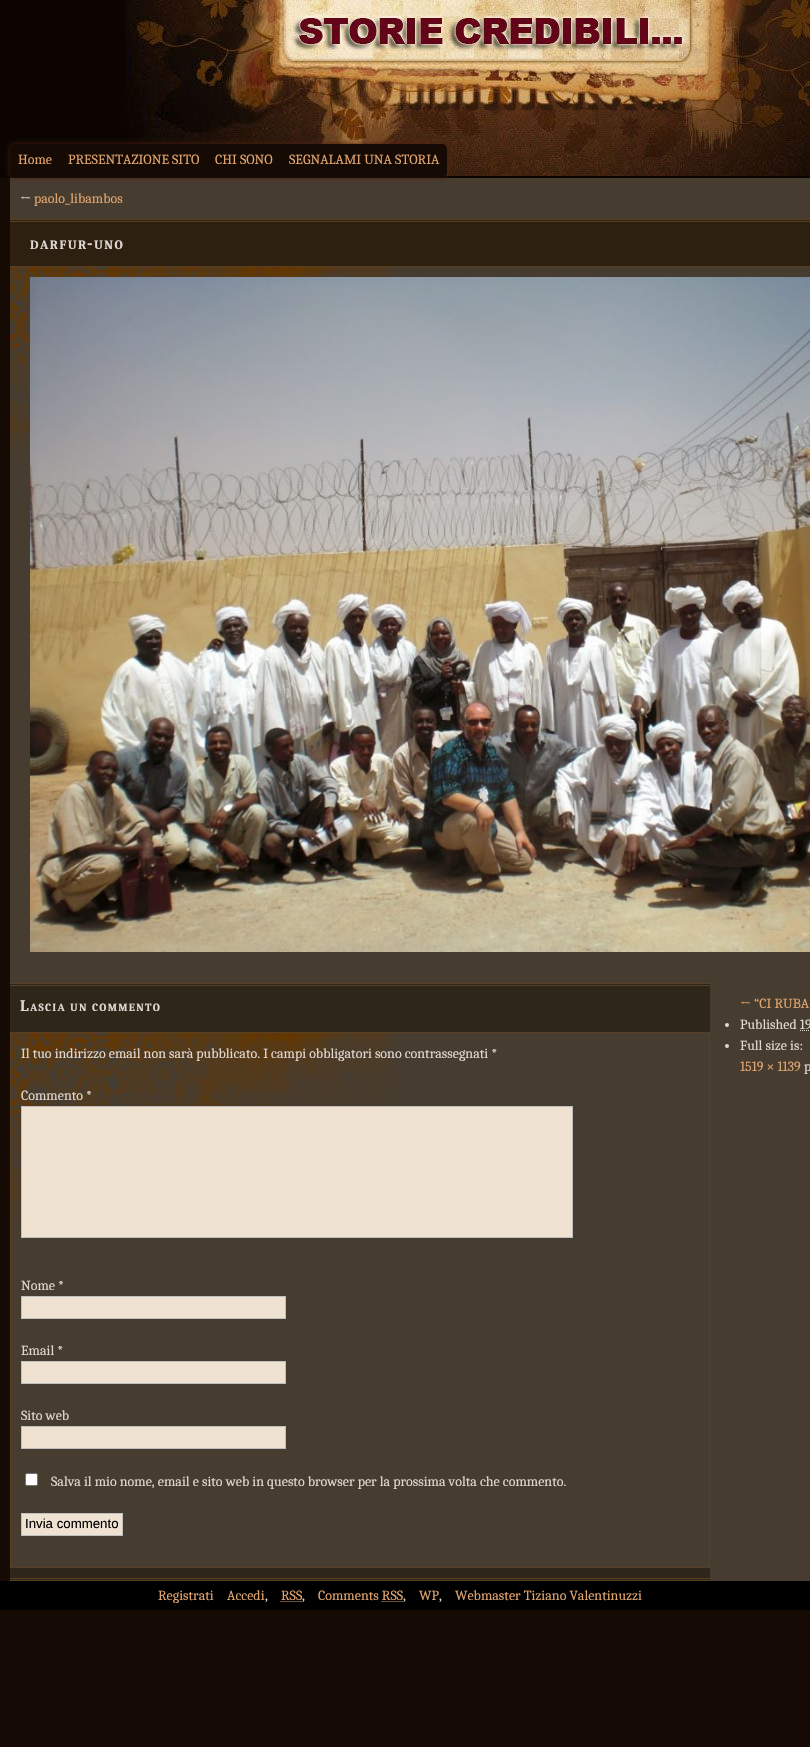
void draw(SkCanvas* canvas) {
	SkPaint fill;
	fill.setAntiAlias(true);
	auto makeFont = [&](const char* family, int weight, float size, bool italic = false) {
		SkFontStyle style(weight, SkFontStyle::kNormal_Width,
			italic ? SkFontStyle::kItalic_Slant : SkFontStyle::kUpright_Slant);
		SkFont result(fontMgr->matchFamilyStyle(family, style), size);
		result.setSubpixel(true);
		return result;
	};
	auto text = [&](const char* s, float x, float y, const SkFont& font) {
		canvas->drawString(s, x, y, font, fill);
	};
	auto spacedText = [&](const char* s, float x, float y, const SkFont& font, const SkPaint& ink, float letter, float word) {
		std::vector<SkGlyphID> glyphs(font.countText(s, strlen(s), SkTextEncoding::kUTF8));
		std::vector<float> xs(glyphs.size());
		font.textToGlyphs(s, strlen(s), SkTextEncoding::kUTF8, glyphs);
		font.getXPos(glyphs, xs, x);
		float extra = 0;
		for (size_t i = 0; i < glyphs.size(); i++) {
			xs[i] += extra;
			extra += letter + word * (glyphs[i] == font.unicharToGlyph(' '));
		}
		canvas->drawTextBlob(SkTextBlob::MakeFromPosHGlyphs(glyphs, xs, y, font), 0, 0, ink);
	};
	auto box = [&](float l, float t, float r, float b) {
		canvas->drawRect(SkRect::MakeLTRB(l, t, r, b), fill);
	};
	auto roundBox = [&](float l, float t, float r, float b, float radius) {
		canvas->drawRoundRect(SkRect::MakeLTRB(l, t, r, b), radius, radius, fill);
	};
	auto picture = [&](const char* path, float l, float t, float r, float b) {
		auto image = SkImages::DeferredFromEncodedData(SkData::MakeFromFileName(path));
		canvas->drawImageRect(image, SkRect::MakeLTRB(l, t, r, b), SkSamplingOptions());
	};
	canvas->clear(0xFF150A04);
	picture("image0.png", 0, 176, 810, 178);
	picture("image1.png", 0, 0, 810, 176);
	fill.setColor(0xFF463C30);
	box(10, 178, 810, 1581);
	fill.setColor(0xFF501F0E);
	fill.setMaskFilter(SkMaskFilter::MakeBlur(kNormal_SkBlurStyle, 2.5f));
	canvas->drawRoundRect(SkRect::MakeLTRB(10, 144, 447, 178), 5, 5, fill);
	fill.setMaskFilter(nullptr);
	fill.setColor(0xFF150A04);
	roundBox(10, 144, 447, 178, 5);
	fill.setColor(0xFF2E2010);
	box(10, 220, 810, 266);
	fill.setColor(0xFF594020);
	box(10, 219, 810, 220);
	box(10, 221, 810, 222);
	picture("image2.png", 10, 267, 394, 453);
	box(10, 266, 810, 267);
	picture("image3.png", 30, 277, 810, 952);
	fill.setColor(0xFF2F261A);
	box(10, 984, 710, 1580);
	fill.setColor(0xFF594020);
	box(10, 983, 710, 984);
	box(10, 985, 710, 986);
	box(10, 1578, 710, 1579);
	box(10, 1580, 710, 1581);
	fill.setColor(0xFF463C30);
	box(11, 1033, 709, 1567);
	picture("image2.png", 11, 1033, 395, 1219);
	fill.setStyle(SkPaint::kStroke_Style);
	fill.setStrokeWidth(1);
	fill.setColor(0xFF594020);
	canvas->drawRect(SkRect::MakeLTRB(10.5f, 1032.5f, 709.5f, 1567.5f), fill);
	fill.setStyle(SkPaint::kFill_Style);
	fill.setColor(0xFFEFE2D1);
	canvas->drawRect(SkRect::MakeLTRB(21.5f, 1106.5f, 572.5f, 1237.5f), fill);
	fill.setStyle(SkPaint::kStroke_Style);
	fill.setColor(0xFFBFBFBF);
	canvas->drawRect(SkRect::MakeLTRB(21.5f, 1106.5f, 572.5f, 1237.5f), fill);
	fill.setStyle(SkPaint::kFill_Style);
	fill.setColor(0xFFEFE2D1);
	canvas->drawRect(SkRect::MakeLTRB(21.5f, 1296.5f, 285.5f, 1318.5f), fill);
	fill.setStyle(SkPaint::kStroke_Style);
	fill.setColor(0xFFBFBFBF);
	canvas->drawRect(SkRect::MakeLTRB(21.5f, 1296.5f, 285.5f, 1318.5f), fill);
	fill.setStyle(SkPaint::kFill_Style);
	fill.setColor(0xFFEFE2D1);
	canvas->drawRect(SkRect::MakeLTRB(21.5f, 1361.5f, 285.5f, 1383.5f), fill);
	fill.setStyle(SkPaint::kStroke_Style);
	fill.setColor(0xFFBFBFBF);
	canvas->drawRect(SkRect::MakeLTRB(21.5f, 1361.5f, 285.5f, 1383.5f), fill);
	fill.setStyle(SkPaint::kFill_Style);
	fill.setColor(0xFFEFE2D1);
	canvas->drawRect(SkRect::MakeLTRB(21.5f, 1426.5f, 285.5f, 1448.5f), fill);
	fill.setStyle(SkPaint::kStroke_Style);
	fill.setColor(0xFFBFBFBF);
	canvas->drawRect(SkRect::MakeLTRB(21.5f, 1426.5f, 285.5f, 1448.5f), fill);
	fill.setStyle(SkPaint::kFill_Style);
	fill.setColor(0xFFFFFFFF);
	canvas->drawRoundRect(SkRect::MakeLTRB(25.5f, 1473.5f, 37.5f, 1485.5f), 1.5f, 1.5f, fill);
	fill.setStyle(SkPaint::kStroke_Style);
	fill.setColor(0xFF767676);
	canvas->drawRoundRect(SkRect::MakeLTRB(25.5f, 1473.5f, 37.5f, 1485.5f), 1.5f, 1.5f, fill);
	fill.setStyle(SkPaint::kFill_Style);
	fill.setColor(0xFFEFE2D1);
	canvas->drawRect(SkRect::MakeLTRB(21.5f, 1513.5f, 122.5f, 1535.5f), fill);
	fill.setStyle(SkPaint::kStroke_Style);
	fill.setColor(0xFFBFBFBF);
	canvas->drawRect(SkRect::MakeLTRB(21.5f, 1513.5f, 122.5f, 1535.5f), fill);
	fill.setStyle(SkPaint::kFill_Style);
	fill.setColor(0xFFDFD7D1);
	canvas->drawCircle(727, 1025, 2, fill);
	fill.setStyle(SkPaint::kStroke_Style);
	fill.setPathEffect(SkDashPathEffect::Make({{1, 1}}, 0));
	canvas->drawPath(SkPathBuilder().moveTo(800, 1030.5f).lineTo(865, 1030.5f).detach(), fill);
	fill.setPathEffect(nullptr);
	fill.setStyle(SkPaint::kFill_Style);
	canvas->drawCircle(727, 1046, 2, fill);
	fill.setColor(0xFF000000);
	box(0, 1581, 810, 1610);
	fill.setStyle(SkPaint::kStroke_Style);
	fill.setColor(0xFFE0A46F);
	fill.setPathEffect(SkDashPathEffect::Make({{1, 1}}, 0));
	canvas->drawPath(SkPathBuilder().moveTo(280.5f, 1601.5f).lineTo(302, 1601.5f).detach(), fill);
	fill.setPathEffect(nullptr);
	fill.setPathEffect(SkDashPathEffect::Make({{1, 1}}, 0));
	canvas->drawPath(SkPathBuilder().moveTo(381.5f, 1601.5f).lineTo(403, 1601.5f).detach(), fill);
	fill.setPathEffect(nullptr);
	auto font1 = makeFont("Caladea", 400, 14);
	fill.setStyle(SkPaint::kFill_Style);
	text("Home", 18, 164, font1);
	text("PRESENTAZIONE SITO", 68, 164, font1);
	text("CHI SONO", 215, 164, font1);
	text("SEGNALAMI UNA STORIA", 289, 164, font1);
	fill.setColor(0xFFDFD7D1);
	text("←", 20, 203, font1);
	fill.setColor(0xFFE0A46F);
	text("paolo_libambos", 34, 203, font1);
	auto font2 = makeFont("Caladea", 700, 12.75f);
	fill.setColor(0xFFDFD7D1);
	spacedText("DARFUR", 30, 249, font2, fill, 1.5f, 0);
	auto font3 = makeFont("Caladea", 700, 18);
	spacedText("-", 87, 249, font3, fill, 1.5f, 0);
	spacedText("UNO", 94, 249, font2, fill, 1.5f, 0);
	auto font4 = makeFont("Caladea", 700, 16);
	spacedText("L", 20, 1011, font4, fill, 1.25f, 0);
	auto font5 = makeFont("Caladea", 700, 11);
	spacedText("ASCIA", 30, 1011, font5, fill, 1.25f, 0);
	spacedText("UN", 70, 1011, font5, fill, 1.25f, 0);
	spacedText("COMMENTO", 92, 1011, font5, fill, 1.25f, 0);
	text("Il tuo indirizzo email non sarà pubblicato. I campi obbligatori sono contrassegnati *", 21, 1058, font1);
	text("Commento *", 21, 1100, font1);
	text("Nome *", 21, 1290, font1);
	text("Email *", 21, 1355, font1);
	text("Sito web", 21, 1420, font1);
	text("Salva il mio nome, email e sito web in questo browser per la prossima volta che commento.", 51, 1486, font1);
	auto font6 = makeFont("Liberation Sans", 400, 13.25f);
	fill.setColor(0xFF000000);
	text("Invia commento", 25, 1528, font6);
	fill.setColor(0xFFE0A46F);
	text("← “CI RUBA", 740, 1008, font1);
	fill.setColor(0xFFDFD7D1);
	text("Published 19", 740, 1029, font1);
	text("Full size is:", 740, 1050, font1);
	fill.setColor(0xFFE0A46F);
	text("1519 × 1139", 740, 1071, font1);
	fill.setColor(0xFFDFD7D1);
	text("p", 804, 1071, font1);
	fill.setColor(0xFFE0A46F);
	text("Registrati", 158, 1600, font1);
	text("Accedi", 227, 1600, font1);
	fill.setColor(0xFFDFD7D1);
	text(",", 265, 1600, font1);
	fill.setColor(0xFFE0A46F);
	text("RSS", 281, 1600, font1);
	fill.setColor(0xFFDFD7D1);
	text(",", 302, 1600, font1);
	fill.setColor(0xFFE0A46F);
	text("Comments RSS", 318, 1600, font1);
	fill.setColor(0xFFDFD7D1);
	text(",", 403, 1600, font1);
	fill.setColor(0xFFE0A46F);
	text("WP", 419, 1600, font1);
	fill.setColor(0xFFDFD7D1);
	text(",", 439, 1600, font1);
	fill.setColor(0xFFE0A46F);
	text("Webmaster Tiziano Valentinuzzi", 455, 1600, font1);
}
